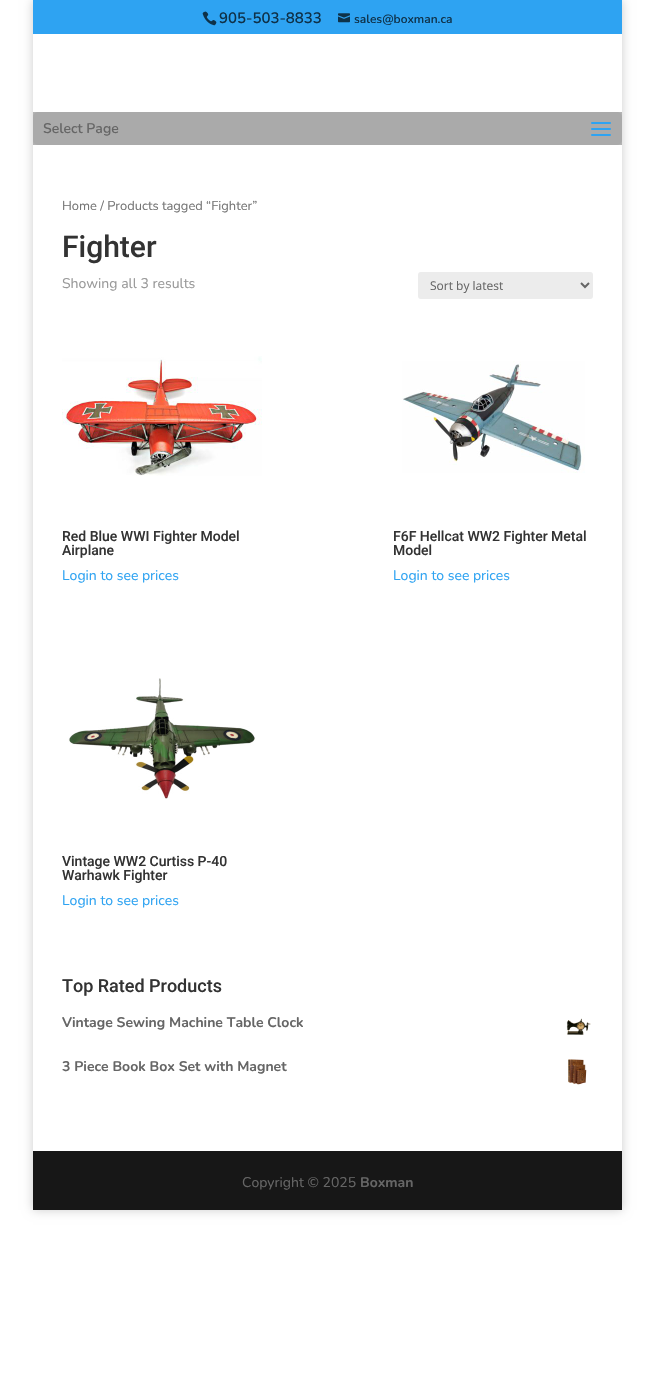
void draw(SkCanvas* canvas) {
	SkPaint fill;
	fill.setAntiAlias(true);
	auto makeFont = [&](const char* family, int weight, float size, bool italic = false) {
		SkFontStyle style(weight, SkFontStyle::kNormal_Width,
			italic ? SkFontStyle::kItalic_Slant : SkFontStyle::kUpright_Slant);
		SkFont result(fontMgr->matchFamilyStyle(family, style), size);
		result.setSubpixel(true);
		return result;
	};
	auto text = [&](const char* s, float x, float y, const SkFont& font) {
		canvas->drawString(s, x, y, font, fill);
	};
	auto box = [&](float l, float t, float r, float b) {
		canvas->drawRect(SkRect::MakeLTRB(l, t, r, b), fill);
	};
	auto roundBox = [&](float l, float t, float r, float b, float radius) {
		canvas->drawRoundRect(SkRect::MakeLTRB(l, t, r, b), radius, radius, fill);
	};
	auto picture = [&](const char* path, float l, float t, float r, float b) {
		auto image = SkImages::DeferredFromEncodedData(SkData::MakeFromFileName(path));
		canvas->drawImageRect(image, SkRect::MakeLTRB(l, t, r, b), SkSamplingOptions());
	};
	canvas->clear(0xFFFFFFFF);
	canvas->save();
	canvas->clipPath(SkPathBuilder(SkPathFillType::kEvenOdd).moveTo(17, 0).lineTo(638, 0).lineTo(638, 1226).lineTo(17, 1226).close().moveTo(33, 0).lineTo(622, 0).lineTo(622, 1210).lineTo(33, 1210).close().detach(), true);
	fill.setColor(0x33000000);
	fill.setMaskFilter(SkMaskFilter::MakeBlur(kNormal_SkBlurStyle, 5));
	canvas->drawRect(SkRect::MakeLTRB(33, 0, 622, 1210), fill);
	fill.setMaskFilter(nullptr);
	canvas->restore();
	fill.setColor(0xFF2EA3F2);
	box(33, 0, 622, 34);
	picture("image0.png", 202, 11, 217, 26);
	picture("image1.png", 338, 13, 350, 23);
	fill.setColor(0xFFB3B3B3);
	box(33, 112, 622, 145);
	fill.setColor(0xFFAAAAAA);
	roundBox(33, 112, 622, 145, 5);
	picture("image2.png", 591, 122, 611, 136);
	fill.setColor(0xFFECECEC);
	roundBox(418, 272, 593, 299, 3);
	fill.setStyle(SkPaint::kStroke_Style);
	fill.setStrokeWidth(2);
	fill.setColor(0xFF666666);
	canvas->drawPath(SkPathBuilder().moveTo(581, 283).lineTo(585, 287).lineTo(589, 283).detach(), fill);
	picture("image3.png", 62, 356, 262, 476);
	picture("image4.png", 402, 361, 585, 473);
	picture("image5.png", 68, 678, 256, 799);
	picture("image6.png", 566, 1018, 591, 1035);
	picture("image7.png", 568, 1059, 587, 1085);
	fill.setStyle(SkPaint::kFill_Style);
	fill.setColor(0xFF171717);
	box(33, 1151, 622, 1210);
	auto font1 = makeFont("Nunito", 600, 15);
	fill.setColor(0xFF0E3149);
	text("905-503-8833", 219, 23, font1);
	auto font2 = makeFont("Nunito", 600, 12);
	text("sales@boxman.ca", 354, 23, font2);
	auto font3 = makeFont("Nunito", 600, 14);
	fill.setColor(0xFF666666);
	text("Select Page", 43, 133, font3);
	auto font4 = makeFont("Nunito", 400, 12.9f);
	fill.setColor(0xFF767676);
	text("Home / Products tagged “Fighter”", 62, 210, font4);
	auto font5 = makeFont("Roboto", 500, 30);
	fill.setColor(0xFF333333);
	text("Fighter", 62, 257, font5);
	auto font6 = makeFont("Nunito", 400, 14);
	fill.setColor(0xFF999999);
	text("Showing all 3 results", 62, 288, font6);
	auto font7 = makeFont("Open Sans", 400, 12);
	fill.setColor(0xFF666666);
	text("Sort by latest", 430, 290, font7);
	auto font8 = makeFont("Roboto", 500, 14);
	fill.setColor(0xFF333333);
	text("Red Blue WWI Fighter Model", 62, 541, font8);
	text("Airplane", 62, 555, font8);
	fill.setColor(0xFF2EA3F2);
	text("Login to see prices", 62, 580, font6);
	fill.setColor(0xFF333333);
	text("F6F Hellcat WW2 Fighter Metal", 393, 541, font8);
	text("Model", 393, 555, font8);
	fill.setColor(0xFF2EA3F2);
	text("Login to see prices", 393, 580, font6);
	fill.setColor(0xFF333333);
	text("Vintage WW2 Curtiss P-40", 62, 866, font8);
	text("Warhawk Fighter", 62, 880, font8);
	fill.setColor(0xFF2EA3F2);
	text("Login to see prices", 62, 905, font6);
	auto font9 = makeFont("Roboto", 500, 18);
	fill.setColor(0xFF333333);
	text("Top Rated Products", 62, 992, font9);
	auto font10 = makeFont("Nunito", 700, 14);
	fill.setColor(0xFF666666);
	text("Vintage Sewing Machine Table Clock", 62, 1027, font10);
	text("3 Piece Book Box Set with Magnet", 62, 1071, font10);
	text("Copyright © 2025", 242, 1187, font6);
	text("Boxman", 360, 1187, font10);
}
